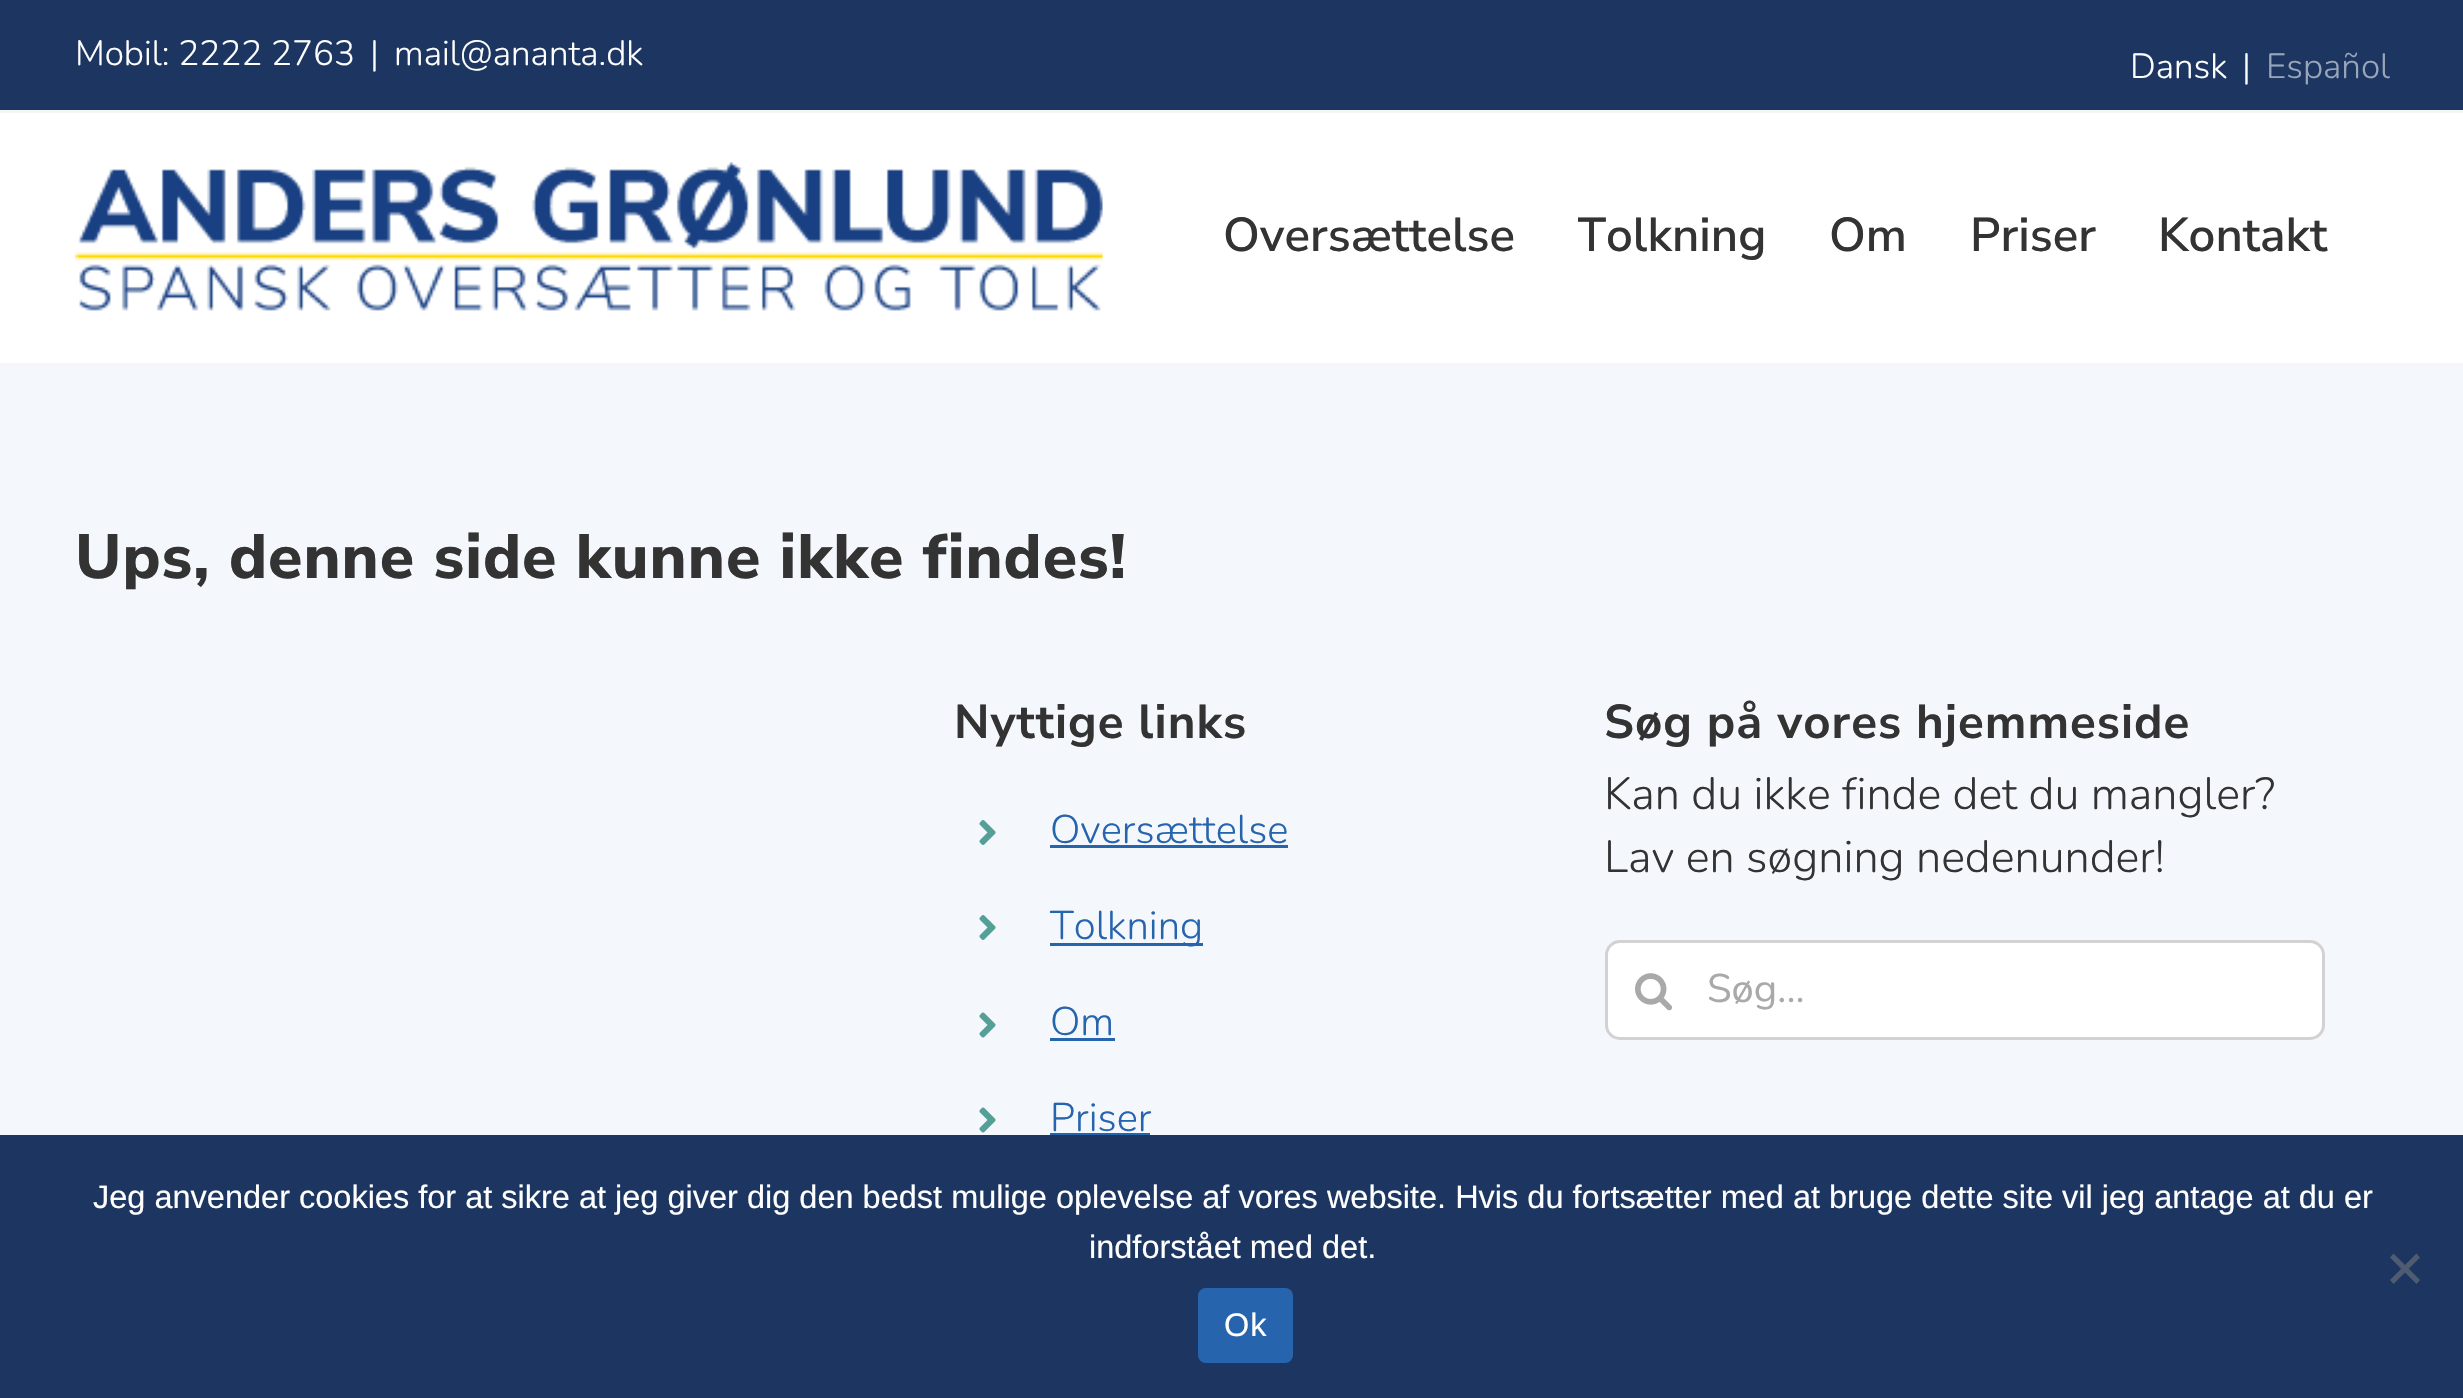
void draw(SkCanvas* canvas) {
	SkPaint fill;
	fill.setAntiAlias(true);
	auto makeFont = [&](const char* family, int weight, float size, bool italic = false) {
		SkFontStyle style(weight, SkFontStyle::kNormal_Width,
			italic ? SkFontStyle::kItalic_Slant : SkFontStyle::kUpright_Slant);
		SkFont result(fontMgr->matchFamilyStyle(family, style), size);
		result.setSubpixel(true);
		return result;
	};
	auto text = [&](const char* s, float x, float y, const SkFont& font) {
		canvas->drawString(s, x, y, font, fill);
	};
	auto spacedText = [&](const char* s, float x, float y, const SkFont& font, const SkPaint& ink, float letter, float word) {
		std::vector<SkGlyphID> glyphs(font.countText(s, strlen(s), SkTextEncoding::kUTF8));
		std::vector<float> xs(glyphs.size());
		font.textToGlyphs(s, strlen(s), SkTextEncoding::kUTF8, glyphs);
		font.getXPos(glyphs, xs, x);
		float extra = 0;
		for (size_t i = 0; i < glyphs.size(); i++) {
			xs[i] += extra;
			extra += letter + word * (glyphs[i] == font.unicharToGlyph(' '));
		}
		canvas->drawTextBlob(SkTextBlob::MakeFromPosHGlyphs(glyphs, xs, y, font), 0, 0, ink);
	};
	auto box = [&](float l, float t, float r, float b) {
		canvas->drawRect(SkRect::MakeLTRB(l, t, r, b), fill);
	};
	auto roundBox = [&](float l, float t, float r, float b, float radius) {
		canvas->drawRoundRect(SkRect::MakeLTRB(l, t, r, b), radius, radius, fill);
	};
	auto picture = [&](const char* path, float l, float t, float r, float b) {
		auto image = SkImages::DeferredFromEncodedData(SkData::MakeFromFileName(path));
		canvas->drawImageRect(image, SkRect::MakeLTRB(l, t, r, b), SkSamplingOptions());
	};
	canvas->clear(0xFFF4F8FC);
	fill.setColor(0xFF1C3661);
	box(0, 0, 2463, 110);
	fill.setColor(0xFFF5F5F5);
	box(0, 110, 2463, 113);
	fill.setColor(0xFFFFFFFF);
	box(0, 113, 2463, 363);
	fill.setColor(0xFFF5F5F5);
	box(0, 363, 2463, 366);
	picture("image0.png", 75, 162, 1103, 311);
	picture("image1.png", 979, 820, 996, 845);
	fill.setColor(0xFF2764AE);
	box(1050, 845, 1288, 848);
	picture("image1.png", 979, 915, 996, 940);
	box(1050, 943, 1203, 946);
	picture("image2.png", 979, 1012, 996, 1038);
	box(1050, 1038, 1115, 1041);
	picture("image2.png", 979, 1107, 996, 1133);
	box(1050, 1133, 1150, 1135);
	fill.setColor(0xFFFFFFFF);
	canvas->drawRoundRect(SkRect::MakeLTRB(1606.5f, 941.5f, 2323.5f, 1038.5f), 13.5f, 13.5f, fill);
	fill.setStyle(SkPaint::kStroke_Style);
	fill.setStrokeWidth(3);
	fill.setColor(0xFFD2D2D2);
	canvas->drawRoundRect(SkRect::MakeLTRB(1606.5f, 941.5f, 2323.5f, 1038.5f), 13.5f, 13.5f, fill);
	picture("image3.png", 1635, 973, 1673, 1011);
	fill.setStyle(SkPaint::kFill_Style);
	fill.setColor(0xFF1C3661);
	box(0, 1135, 2463, 1398);
	fill.setColor(0xFF4E5B71);
	canvas->drawPath(SkPathBuilder().moveTo(2416.5f, 1253.5f).lineTo(2420, 1257.5f).lineTo(2393.5f, 1284).lineTo(2390, 1280).close().detach(), fill);
	canvas->drawPath(SkPathBuilder().moveTo(2390, 1257.5f).lineTo(2393.5f, 1253.5f).lineTo(2420, 1280).lineTo(2416.5f, 1284).close().detach(), fill);
	fill.setColor(0xFF2764AE);
	roundBox(1198, 1288, 1293, 1363, 8);
	auto font1 = makeFont("Nunito", 300, 35);
	fill.setColor(0xFFFFFFFF);
	text("Mobil: 2222 2763", 75, 65, font1);
	text("|", 370, 65, font1);
	text("mail@ananta.dk", 394, 65, font1);
	text("Dansk", 2130, 78, font1);
	text("|", 2242, 78, font1);
	fill.setColor(0xFF99A5B8);
	text("Español", 2266, 78, font1);
	auto font2 = makeFont("Nunito Sans", 600, 47.5f);
	fill.setColor(0xFF333333);
	text("Oversættelse", 1223, 251, font2);
	canvas->save();
	canvas->clipRect(SkRect::MakeLTRB(1578, 113, 1830, 363));
	text("Tolkning", 1577, 251, font2);
	canvas->restore();
	text("Om", 1829, 251, font2);
	text("Priser", 1970, 251, font2);
	text("Kontakt", 2158, 251, font2);
	auto font3 = makeFont("Nunito Sans", 800, 62.5f);
	spacedText("Ups, denne side kunne ikke findes!", 75, 578, font3, fill, 1, 0);
	auto font4 = makeFont("Nunito Sans", 700, 47.5f);
	spacedText("Nyttige links", 954, 738, font4, fill, 1, 0);
	auto font5 = makeFont("Nunito", 300, 40);
	fill.setColor(0xFF2764AE);
	text("Oversættelse", 1050, 843, font5);
	text("Tolkning", 1050, 939, font5);
	text("Om", 1050, 1035, font5);
	text("Priser", 1050, 1131, font5);
	fill.setColor(0xFF333333);
	spacedText("Søg på vores hjemmeside", 1604, 738, font4, fill, 1, 0);
	auto font6 = makeFont("Nunito", 300, 45);
	text("Kan du ikke finde det du mangler?", 1604, 809, font6);
	text("Lav en søgning nedenunder!", 1604, 872, font6);
	auto font7 = makeFont("Nunito", 400, 40);
	fill.setColor(0xFFAAA9A9);
	text("Søg...", 1707, 1002, font7);
	auto font8 = makeFont("Liberation Sans", 400, 32.5f);
	fill.setColor(0xFFFFFFFF);
	text("Jeg anvender cookies for at sikre at jeg giver dig den bedst mulige oplevelse af vores website. Hvis du fortsætter med at bruge dette site vil jeg antage at du er", 93, 1208, font8);
	text("indforstået med det.", 1089, 1258, font8);
	spacedText("Ok", 1224, 1336, font8, fill, 1, 0);
}
